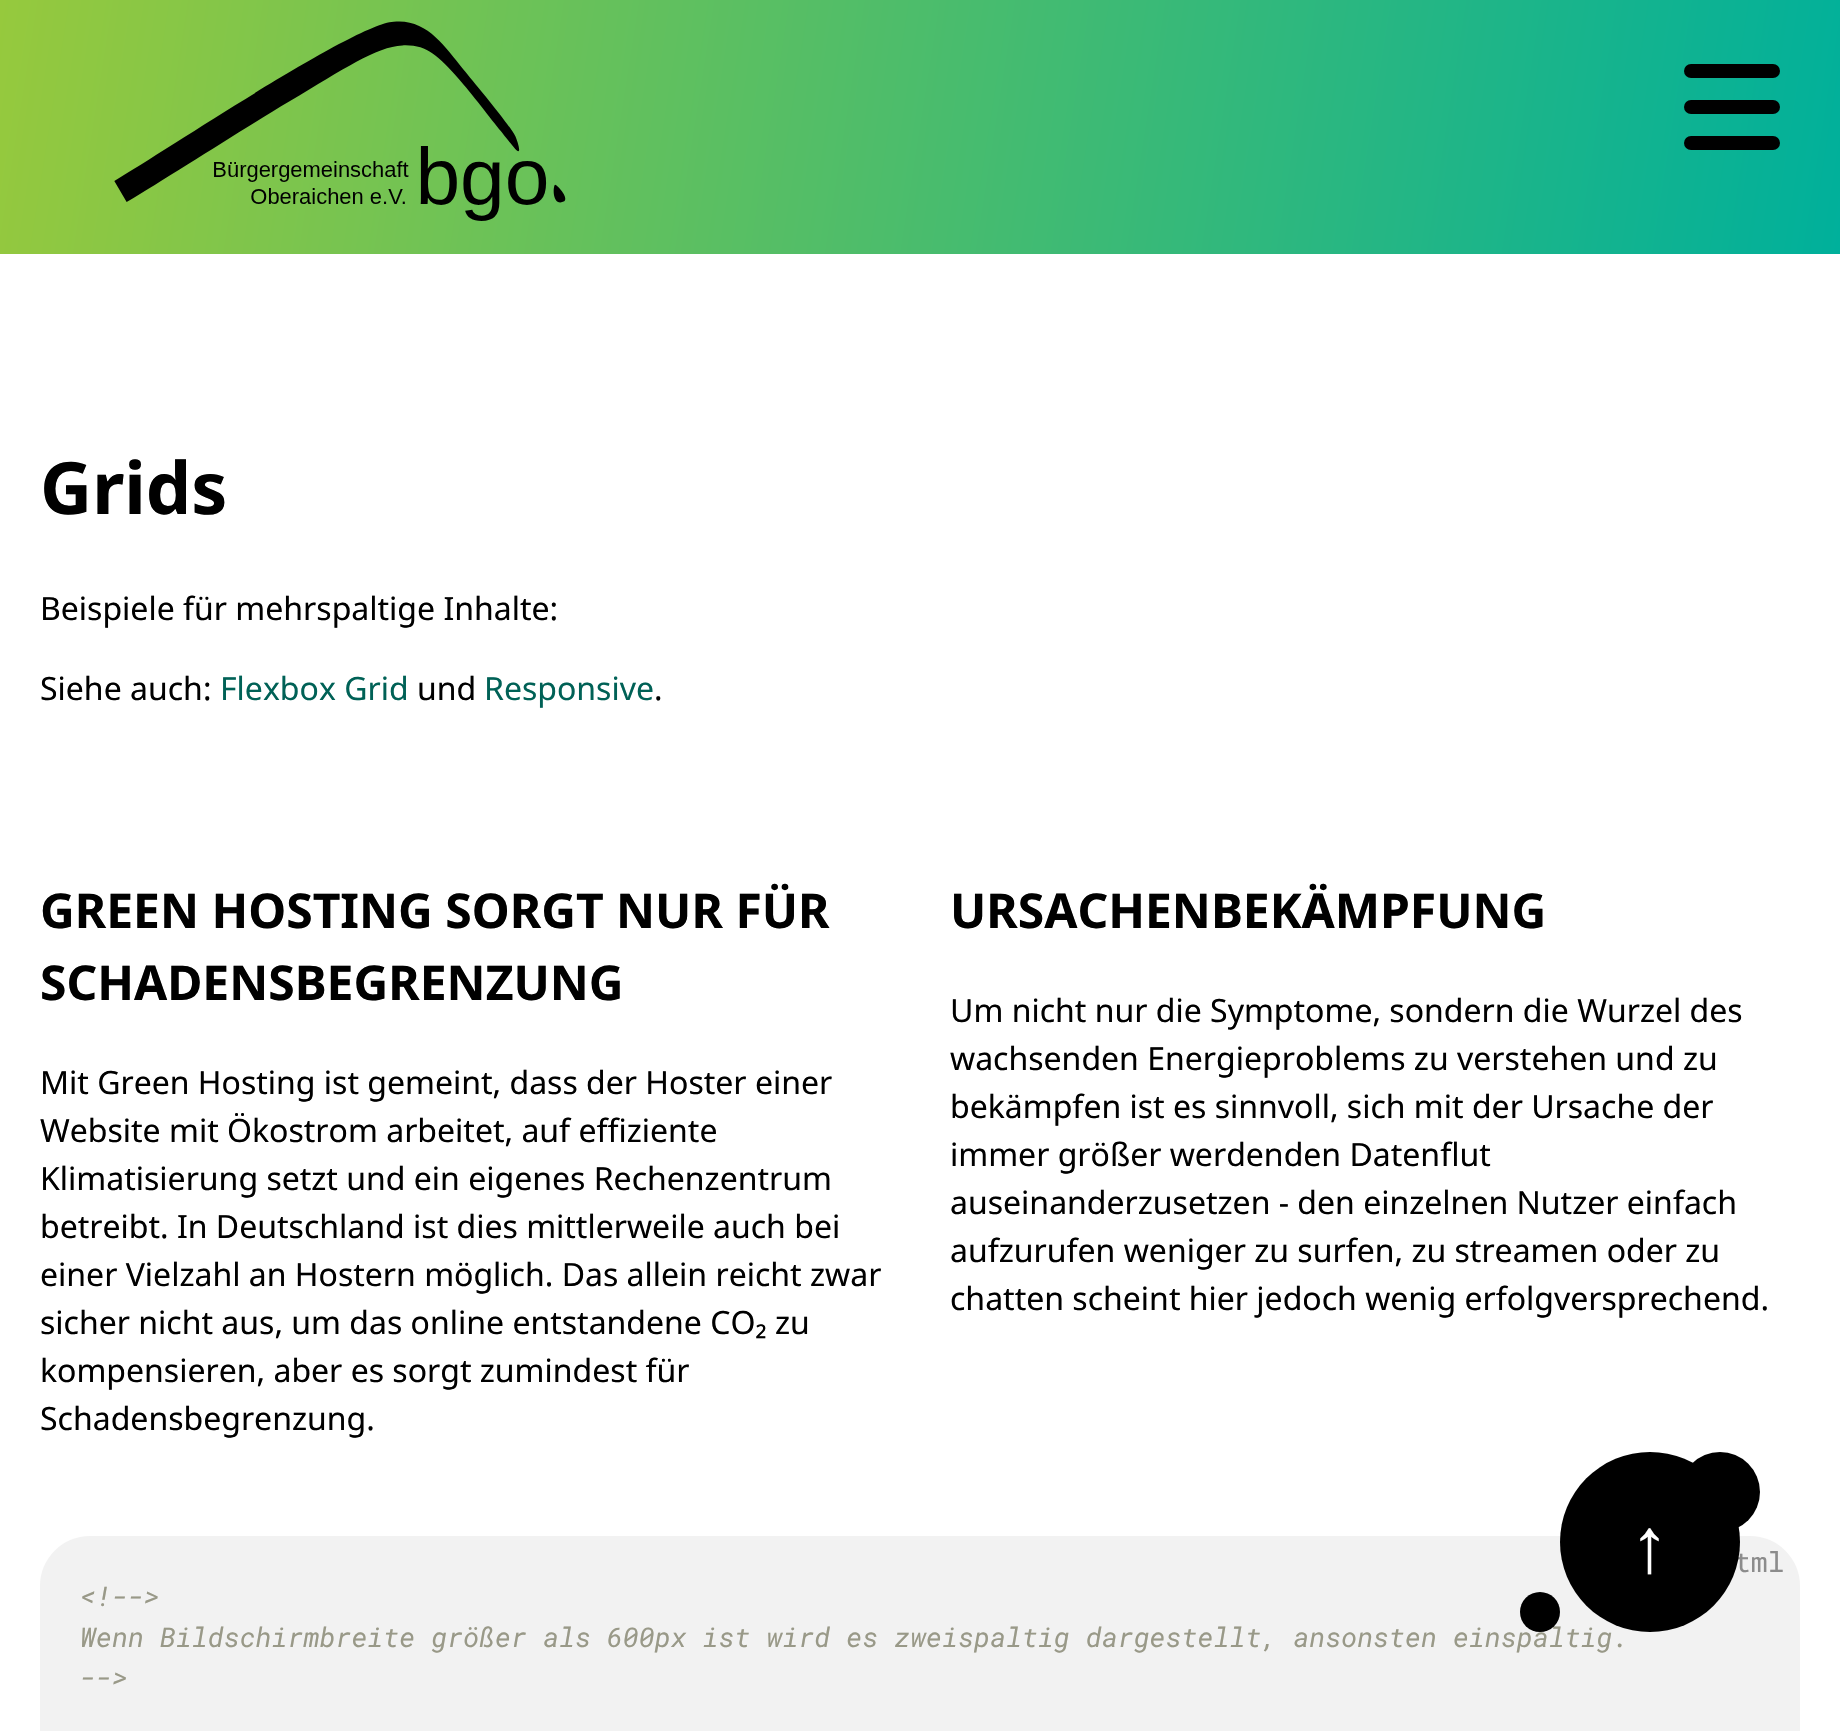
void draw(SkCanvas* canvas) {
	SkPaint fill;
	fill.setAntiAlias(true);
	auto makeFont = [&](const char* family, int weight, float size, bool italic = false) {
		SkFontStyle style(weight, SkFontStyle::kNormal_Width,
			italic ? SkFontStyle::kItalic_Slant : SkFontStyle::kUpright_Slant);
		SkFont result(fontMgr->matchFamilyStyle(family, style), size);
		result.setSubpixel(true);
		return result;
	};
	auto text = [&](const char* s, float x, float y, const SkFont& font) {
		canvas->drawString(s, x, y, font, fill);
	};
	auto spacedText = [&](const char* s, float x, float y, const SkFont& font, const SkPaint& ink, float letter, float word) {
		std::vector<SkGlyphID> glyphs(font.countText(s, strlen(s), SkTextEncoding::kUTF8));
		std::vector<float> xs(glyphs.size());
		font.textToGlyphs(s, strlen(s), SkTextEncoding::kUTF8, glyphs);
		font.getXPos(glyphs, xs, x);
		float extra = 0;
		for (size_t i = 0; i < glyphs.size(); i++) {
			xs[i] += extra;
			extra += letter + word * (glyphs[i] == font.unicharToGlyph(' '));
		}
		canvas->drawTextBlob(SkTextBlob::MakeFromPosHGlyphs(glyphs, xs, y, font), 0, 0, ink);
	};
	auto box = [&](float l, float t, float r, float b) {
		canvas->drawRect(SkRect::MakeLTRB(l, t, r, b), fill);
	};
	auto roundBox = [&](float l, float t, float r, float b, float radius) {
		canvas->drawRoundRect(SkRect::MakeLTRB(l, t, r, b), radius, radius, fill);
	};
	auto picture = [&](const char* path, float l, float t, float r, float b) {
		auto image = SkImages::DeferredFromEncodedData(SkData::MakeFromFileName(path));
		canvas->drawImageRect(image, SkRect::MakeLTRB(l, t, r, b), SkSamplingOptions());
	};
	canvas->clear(0xFFFFFFFF);
	{
		const SkColor colors[] = {0xFF96C93D, 0xFF00B09B};
		const float stops[] = {0, 1};
		const SkPoint ends[] = {{2.9f, -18}, {1837, 272}};
		fill.setShader(SkGradientShader::MakeLinear(ends, colors, stops, 2, SkTileMode::kClamp));
		fill.setAlpha(255);
	}
	box(0, 0, 1840, 254);
	picture("image0.png", 114, 21, 566, 221);
	fill.setShader(nullptr);
	fill.setColor(0xFF000000);
	roundBox(1684, 64, 1780, 78, 7);
	roundBox(1684, 100, 1780, 114, 7);
	roundBox(1684, 136, 1780, 150, 7);
	fill.setColor(0xFFF2F2F2);
	roundBox(40, 1536, 1800, 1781, 50);
	auto font1 = makeFont("Noto Sans", 700, 72);
	fill.setColor(0xFF000000);
	text("Grids", 40, 514, font1);
	auto font2 = makeFont("Noto Sans", 400, 32);
	text("Beispiele für mehrspaltige Inhalte:", 40, 620, font2);
	text("Siehe auch:", 40, 700, font2);
	fill.setColor(0xFF006156);
	text("Flexbox Grid", 220, 700, font2);
	fill.setColor(0xFF000000);
	text("und", 417, 700, font2);
	fill.setColor(0xFF006156);
	text("Responsive", 484, 700, font2);
	fill.setColor(0xFF000000);
	text(".", 654, 700, font2);
	auto font3 = makeFont("Noto Sans", 700, 48);
	text("GREEN HOSTING SORGT NUR FÜR", 40, 928, font3);
	text("SCHADENSBEGRENZUNG", 40, 1000, font3);
	text("Mit Green Hosting ist gemeint, dass der Hoster einer", 40, 1094, font2);
	text("Website mit Ökostrom arbeitet, auf effiziente", 40, 1142, font2);
	text("Klimatisierung setzt und ein eigenes Rechenzentrum", 40, 1190, font2);
	text("betreibt. In Deutschland ist dies mittlerweile auch bei", 40, 1238, font2);
	text("einer Vielzahl an Hostern möglich. Das allein reicht zwar", 40, 1286, font2);
	text("sicher nicht aus, um das online entstandene CO₂ zu", 40, 1334, font2);
	text("kompensieren, aber es sorgt zumindest für", 40, 1382, font2);
	text("Schadensbegrenzung.", 40, 1430, font2);
	text("URSACHENBEKÄMPFUNG", 950, 928, font3);
	text("Um nicht nur die Symptome, sondern die Wurzel des", 950, 1022, font2);
	text("wachsenden Energieproblems zu verstehen und zu", 950, 1070, font2);
	text("bekämpfen ist es sinnvoll, sich mit der Ursache der", 950, 1118, font2);
	text("immer größer werdenden Datenflut", 950, 1166, font2);
	text("auseinanderzusetzen - den einzelnen Nutzer einfach", 950, 1214, font2);
	text("aufzurufen weniger zu surfen, zu streamen oder zu", 950, 1262, font2);
	text("chatten scheint hier jedoch wenig erfolgversprechend.", 950, 1310, font2);
	auto font4 = makeFont("Roboto Mono", 400, 28);
	fill.setColor(0xFF8C8C8C);
	text("tml", 1734, 1572, font4);
	auto font5 = makeFont("Roboto Mono", 400, 27.2f, true);
	fill.setColor(0xFF999988);
	text("<!-->", 80, 1606, font5);
	text("Wenn Bildschirmbreite größer als 600px ist wird es zweispaltig dargestellt, ansonsten einspaltig.", 80, 1647, font5);
	text("-->", 80, 1687, font5);
	fill.setColor(0xFF000000);
	canvas->drawCircle(1650, 1542, 90, fill);
	canvas->drawCircle(1720, 1492, 40, fill);
	auto font6 = makeFont("Liberation Sans", 700, 78);
	fill.setColor(0xFFFFFFFF);
	spacedText("↑", 1630, 1572, font6, fill, 1, 0);
	fill.setColor(0xFF000000);
	canvas->drawCircle(1540, 1612, 20, fill);
}
